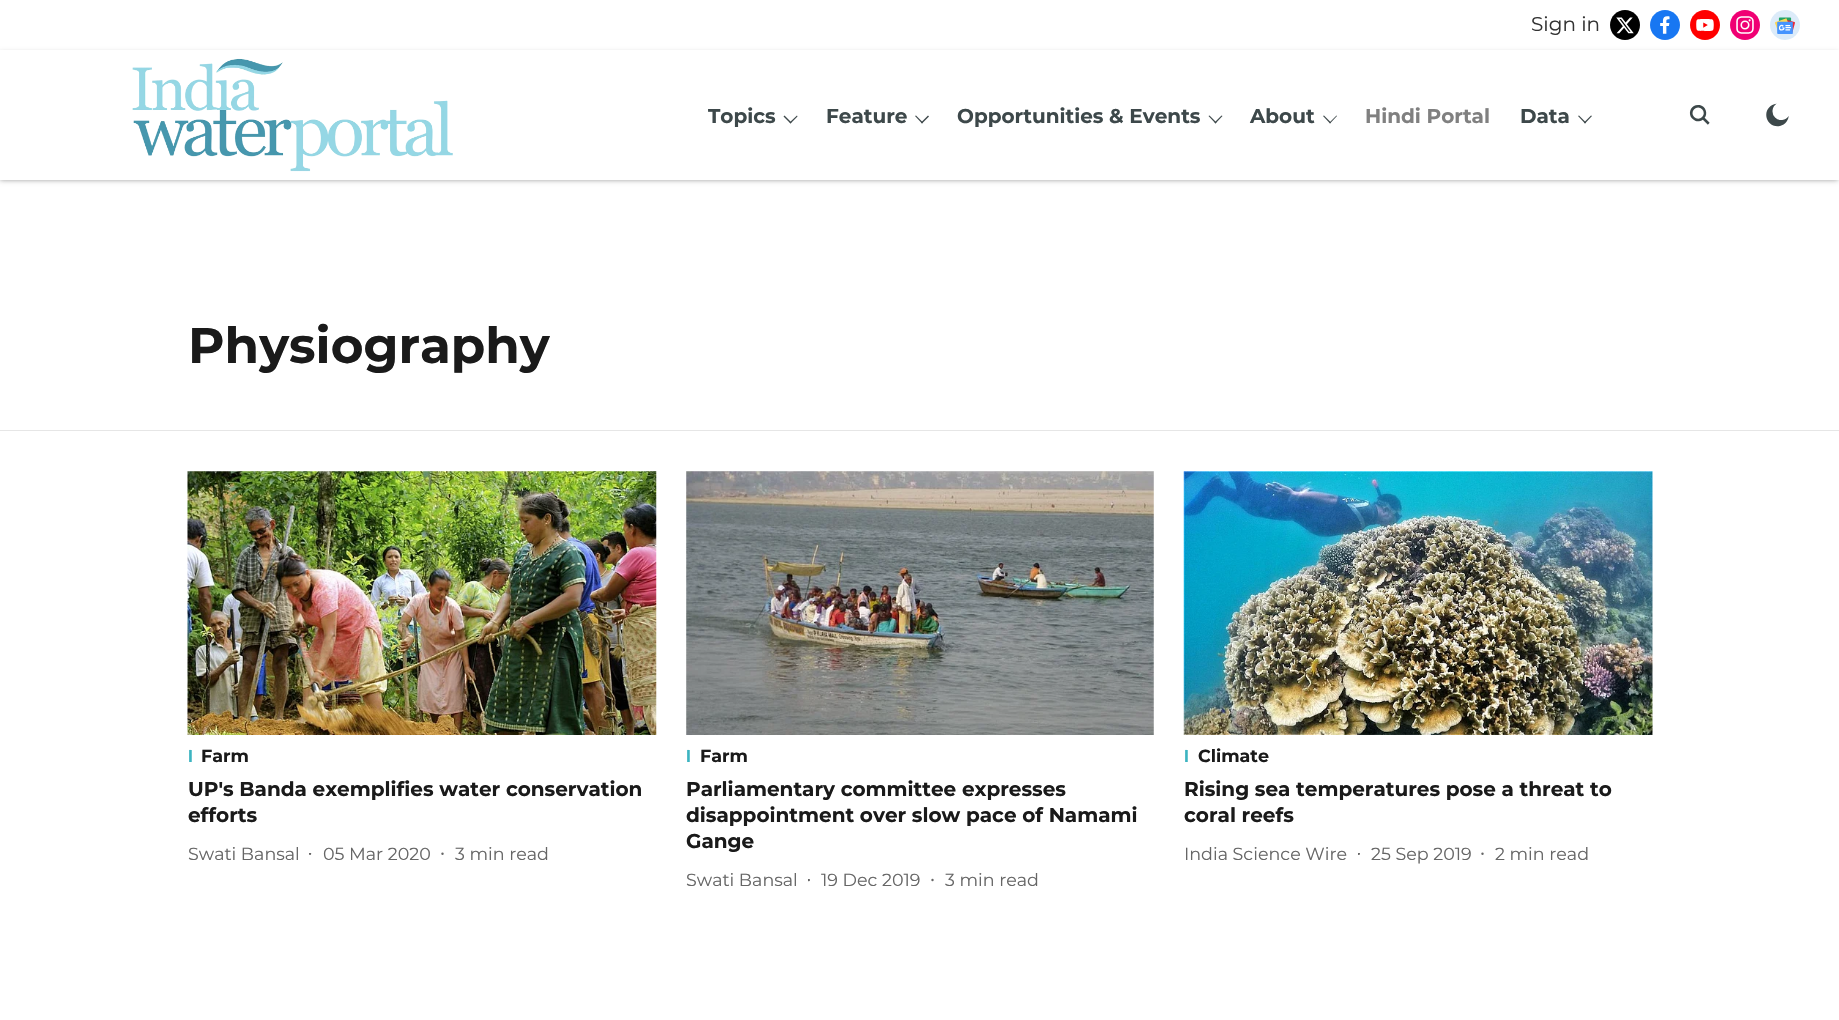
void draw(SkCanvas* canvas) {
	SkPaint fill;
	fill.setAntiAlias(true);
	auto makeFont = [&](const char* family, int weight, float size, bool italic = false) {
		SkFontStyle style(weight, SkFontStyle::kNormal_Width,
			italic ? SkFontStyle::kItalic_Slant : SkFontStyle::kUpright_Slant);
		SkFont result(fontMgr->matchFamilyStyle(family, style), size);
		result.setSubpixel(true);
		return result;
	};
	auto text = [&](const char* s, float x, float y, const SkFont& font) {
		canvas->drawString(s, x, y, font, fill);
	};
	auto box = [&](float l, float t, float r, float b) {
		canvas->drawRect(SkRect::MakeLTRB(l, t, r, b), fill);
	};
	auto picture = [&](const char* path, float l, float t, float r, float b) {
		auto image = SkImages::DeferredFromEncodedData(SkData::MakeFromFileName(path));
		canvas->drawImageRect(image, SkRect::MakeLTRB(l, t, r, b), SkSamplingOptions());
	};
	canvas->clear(0xFFFFFFFF);
	picture("image0.png", 1610, 10, 1640, 40);
	picture("image1.png", 1650, 10, 1680, 40);
	picture("image2.png", 1690, 10, 1720, 40);
	picture("image3.png", 1730, 10, 1760, 40);
	picture("image4.png", 1770, 10, 1800, 40);
	canvas->save();
	canvas->clipPath(SkPathBuilder(SkPathFillType::kEvenOdd).moveTo(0, 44).lineTo(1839, 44).lineTo(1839, 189).lineTo(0, 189).close().moveTo(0, 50).lineTo(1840, 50).lineTo(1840, 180).lineTo(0, 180).close().detach(), true);
	fill.setColor(0x63000000);
	fill.setMaskFilter(SkMaskFilter::MakeBlur(kNormal_SkBlurStyle, 2.5f));
	canvas->drawRect(SkRect::MakeLTRB(0, 53, 1838, 180), fill);
	fill.setMaskFilter(nullptr);
	canvas->restore();
	picture("image5.png", 132, 58, 453, 172);
	fill.setColor(0xFF3D484A);
	canvas->drawPath(SkPathBuilder().moveTo(797, 115.5f).lineTo(797.5f, 116.5f).lineTo(790.5f, 123.5f).lineTo(789.5f, 122.5f).close().detach(), fill);
	canvas->drawPath(SkPathBuilder().moveTo(784.5f, 115.5f).lineTo(791.5f, 122.5f).lineTo(790.5f, 123.5f).lineTo(783.5f, 116.5f).close().detach(), fill);
	canvas->drawPath(SkPathBuilder().moveTo(928, 115.5f).lineTo(929, 116.5f).lineTo(922, 123.5f).lineTo(921, 122.5f).close().detach(), fill);
	canvas->drawPath(SkPathBuilder().moveTo(916, 115.5f).lineTo(923, 122.5f).lineTo(922, 123.5f).lineTo(915, 116).close().detach(), fill);
	canvas->drawPath(SkPathBuilder().moveTo(1221.5f, 115.5f).lineTo(1222.5f, 116).lineTo(1215.5f, 123.5f).lineTo(1214.5f, 122.5f).close().detach(), fill);
	canvas->drawPath(SkPathBuilder().moveTo(1209.5f, 115.5f).lineTo(1216.5f, 122.5f).lineTo(1215.5f, 123.5f).lineTo(1208.5f, 116).close().detach(), fill);
	canvas->drawPath(SkPathBuilder().moveTo(1336.5f, 115.5f).lineTo(1337, 116).lineTo(1330, 123.5f).lineTo(1329.5f, 122.5f).close().detach(), fill);
	canvas->drawPath(SkPathBuilder().moveTo(1324, 115.5f).lineTo(1331, 122.5f).lineTo(1330, 123.5f).lineTo(1323, 116).close().detach(), fill);
	canvas->drawPath(SkPathBuilder().moveTo(1591, 115.5f).lineTo(1592, 116).lineTo(1585, 123.5f).lineTo(1584, 122.5f).close().detach(), fill);
	canvas->drawPath(SkPathBuilder().moveTo(1579, 115.5f).lineTo(1586, 122.5f).lineTo(1585, 123.5f).lineTo(1578, 116).close().detach(), fill);
	picture("image6.png", 1689, 105, 1710, 125);
	picture("image7.png", 1766, 103, 1789, 127);
	fill.setColor(0xFFE6E6E6);
	box(0, 430, 1839, 431);
	picture("image8.png", 187, 471, 657, 735);
	canvas->save();
	canvas->clipRect(SkRect::MakeLTRB(309, 853, 313, 857));
	fill.setColor(0xFF666666);
	canvas->drawCircle(310, 853.8f, 1.2f, fill);
	canvas->restore();
	canvas->drawCircle(442.5f, 853.8f, 1.2f, fill);
	fill.setColor(0xFFF0F0F0);
	box(686, 471, 1154, 735);
	picture("image9.png", 686, 471, 1154, 735);
	canvas->save();
	canvas->clipRect(SkRect::MakeLTRB(808, 879, 812, 883));
	fill.setColor(0xFF666666);
	canvas->drawCircle(808.8f, 880, 1.2f, fill);
	canvas->restore();
	canvas->drawCircle(932.5f, 880, 1.2f, fill);
	fill.setColor(0xFFF0F0F0);
	box(1184, 471, 1653, 735);
	picture("image10.png", 1183, 471, 1653, 735);
	canvas->save();
	canvas->clipRect(SkRect::MakeLTRB(1358, 853, 1362, 857));
	fill.setColor(0xFF666666);
	canvas->drawCircle(1358.8f, 853.8f, 1.2f, fill);
	canvas->restore();
	canvas->drawCircle(1482.5f, 853.8f, 1.2f, fill);
	auto font1 = makeFont("Montserrat", 100, 20);
	fill.setColor(0xFF333333);
	text("Sign in", 1531, 31, font1);
	auto font2 = makeFont("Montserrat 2", 100, 20);
	fill.setColor(0xFF3D484A);
	text("Topics", 708, 123, font2);
	text("Feature", 826, 123, font2);
	text("Opportunities & Events", 957, 123, font2);
	text("About", 1250, 123, font2);
	fill.setColor(0xFF808080);
	text("Hindi Portal", 1365, 123, font2);
	fill.setColor(0xFF3D484A);
	text("Data", 1520, 123, font2);
	auto font3 = makeFont("Montserrat 2", 100, 50);
	fill.setColor(0xFF1A1A1A);
	text("Physiography", 188, 363, font3);
	auto font4 = makeFont("Liberation Sans", 700, 17.5f);
	fill.setColor(0xFF3CB4C1);
	text("I", 188, 762, font4);
	auto font5 = makeFont("Montserrat 2", 100, 17.5f);
	fill.setColor(0xFF1A1A1A);
	text("Farm", 201, 762, font5);
	text("UP's Banda exemplifies water conservation", 188, 796, font2);
	text("efforts", 188, 822, font2);
	auto font6 = makeFont("Montserrat", 100, 17.5f);
	fill.setColor(0xFF666666);
	text("Swati Bansal", 188, 860, font6);
	text("05 Mar 2020", 323, 860, font6);
	text("3 min read", 455, 860, font6);
	fill.setColor(0xFF3CB4C1);
	text("I", 686, 762, font4);
	fill.setColor(0xFF1A1A1A);
	text("Farm", 700, 762, font5);
	text("Parliamentary committee expresses", 686, 796, font2);
	text("disappointment over slow pace of Namami", 686, 822, font2);
	text("Gange", 686, 848, font2);
	fill.setColor(0xFF666666);
	text("Swati Bansal", 686, 886, font6);
	text("19 Dec 2019", 821, 886, font6);
	text("3 min read", 945, 886, font6);
	fill.setColor(0xFF3CB4C1);
	text("I", 1184, 762, font4);
	fill.setColor(0xFF1A1A1A);
	text("Climate", 1198, 762, font5);
	text("Rising sea temperatures pose a threat to", 1184, 796, font2);
	text("coral reefs", 1184, 822, font2);
	fill.setColor(0xFF666666);
	text("India Science Wire", 1184, 860, font6);
	text("25 Sep 2019", 1371, 860, font6);
	text("2 min read", 1495, 860, font6);
}
